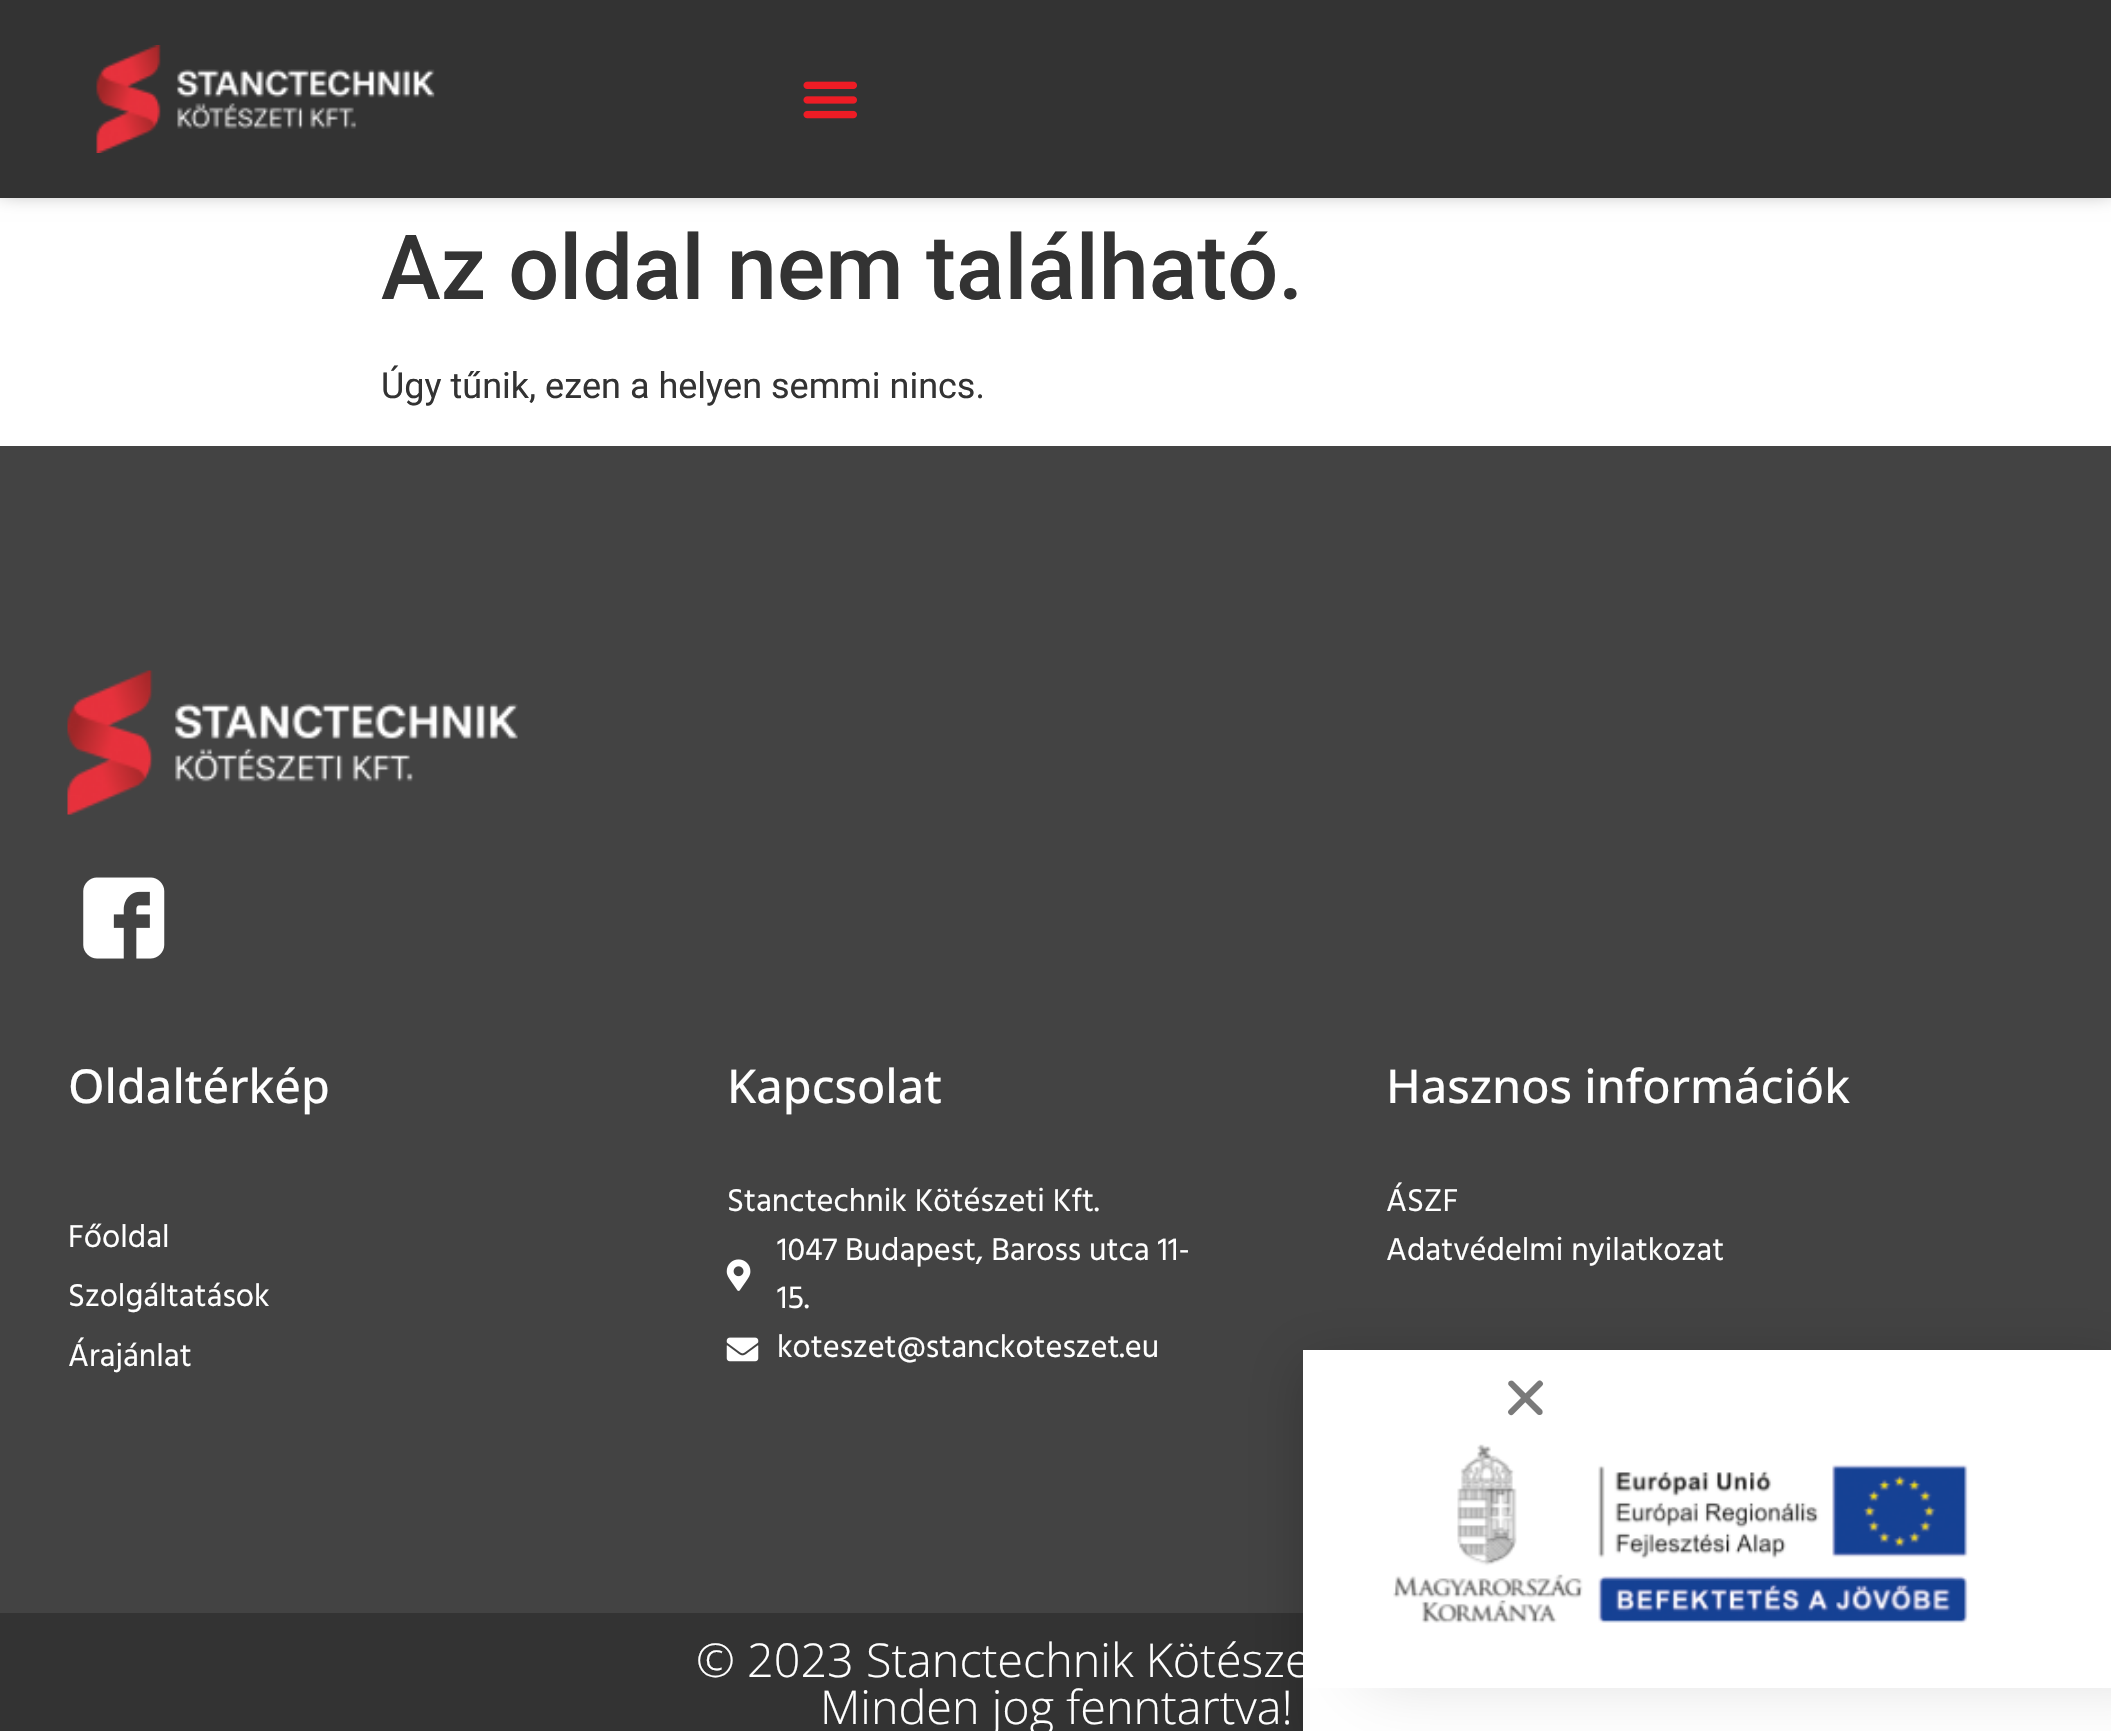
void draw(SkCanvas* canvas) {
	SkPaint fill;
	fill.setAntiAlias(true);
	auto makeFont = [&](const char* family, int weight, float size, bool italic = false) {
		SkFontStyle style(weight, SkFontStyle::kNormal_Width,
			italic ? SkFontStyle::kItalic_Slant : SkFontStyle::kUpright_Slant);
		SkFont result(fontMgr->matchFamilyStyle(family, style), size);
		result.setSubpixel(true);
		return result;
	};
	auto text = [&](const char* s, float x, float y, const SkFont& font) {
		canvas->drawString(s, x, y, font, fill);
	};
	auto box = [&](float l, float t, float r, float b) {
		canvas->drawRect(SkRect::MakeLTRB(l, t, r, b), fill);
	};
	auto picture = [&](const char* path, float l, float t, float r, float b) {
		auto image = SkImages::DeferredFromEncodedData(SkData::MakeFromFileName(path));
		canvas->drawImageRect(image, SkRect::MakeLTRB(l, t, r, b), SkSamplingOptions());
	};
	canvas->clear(0xFFFFFFFF);
	fill.setColor(0x80000000);
	fill.setMaskFilter(SkMaskFilter::MakeBlur(kNormal_SkBlurStyle, 11));
	canvas->drawRect(SkRect::MakeLTRB(0, -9, 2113, 189), fill);
	fill.setMaskFilter(nullptr);
	fill.setColor(0xFF333333);
	box(0, 0, 2111, 198);
	picture("image0.png", 96, 45, 435, 153);
	picture("image1.png", 803, 81, 857, 119);
	fill.setColor(0xFF434343);
	box(0, 446, 2111, 1613);
	fill.setColor(0xFF333333);
	box(0, 1613, 1303, 1731);
	fill.setColor(0x33000000);
	fill.setMaskFilter(SkMaskFilter::MakeBlur(kNormal_SkBlurStyle, 26));
	canvas->drawRect(SkRect::MakeLTRB(1301, 1361, 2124, 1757), fill);
	fill.setMaskFilter(nullptr);
	fill.setColor(0xFFFFFFFF);
	box(1303, 1688, 2111, 1731);
	canvas->save();
	canvas->clipRect(SkRect::MakeLTRB(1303, 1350, 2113, 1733));
	fill.setColor(0x24000000);
	fill.setMaskFilter(SkMaskFilter::MakeBlur(kNormal_SkBlurStyle, 32.5f));
	canvas->drawRect(SkRect::MakeLTRB(1366, 1094, 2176, 1679), fill);
	fill.setMaskFilter(nullptr);
	canvas->restore();
	fill.setColor(0xFFFFFFFF);
	box(1303, 1350, 2111, 1688);
	picture("image2.png", 1393, 1444, 1969, 1623);
	picture("image3.png", 1508, 1380, 1544, 1416);
	picture("image4.png", 67, 670, 518, 815);
	picture("image5.png", 83, 877, 165, 959);
	picture("image6.png", 726, 1259, 751, 1291);
	picture("image7.png", 726, 1337, 759, 1362);
	auto font1 = makeFont("Roboto", 500, 90);
	fill.setColor(0xFF333333);
	text("Az oldal nem található.", 381, 299, font1);
	auto font2 = makeFont("Roboto", 400, 36);
	text("Úgy tűnik, ezen a helyen semmi nincs.", 381, 398, font2);
	auto font3 = makeFont("Open Sans", 500, 46.75f);
	fill.setColor(0xFFFFFFFF);
	text("Oldaltérkép", 68, 1103, font3);
	auto font4 = makeFont("Hind", 400, 32.4f);
	text("Főoldal", 68, 1247, font4);
	text("Szolgáltatások", 68, 1306, font4);
	text("Árajánlat", 68, 1366, font4);
	text("Kapcsolat", 727, 1103, font3);
	text("Stanctechnik Kötészeti Kft.", 727, 1211, font4);
	text("1047 Budapest, Baross utca 11-", 777, 1260, font4);
	text("15.", 777, 1308, font4);
	text("koteszet@stanckoteszet.eu", 777, 1357, font4);
	text("Hasznos információk", 1386, 1103, font3);
	text("ÁSZF", 1386, 1211, font4);
	text("Adatvédelmi nyilatkozat", 1386, 1260, font4);
	auto font5 = makeFont("Open Sans", 300, 46.75f);
	text("© 2023 Stanctechnik Kötésze", 696, 1677, font5);
	text("Minden jog fenntartva!", 820, 1724, font5);
}
